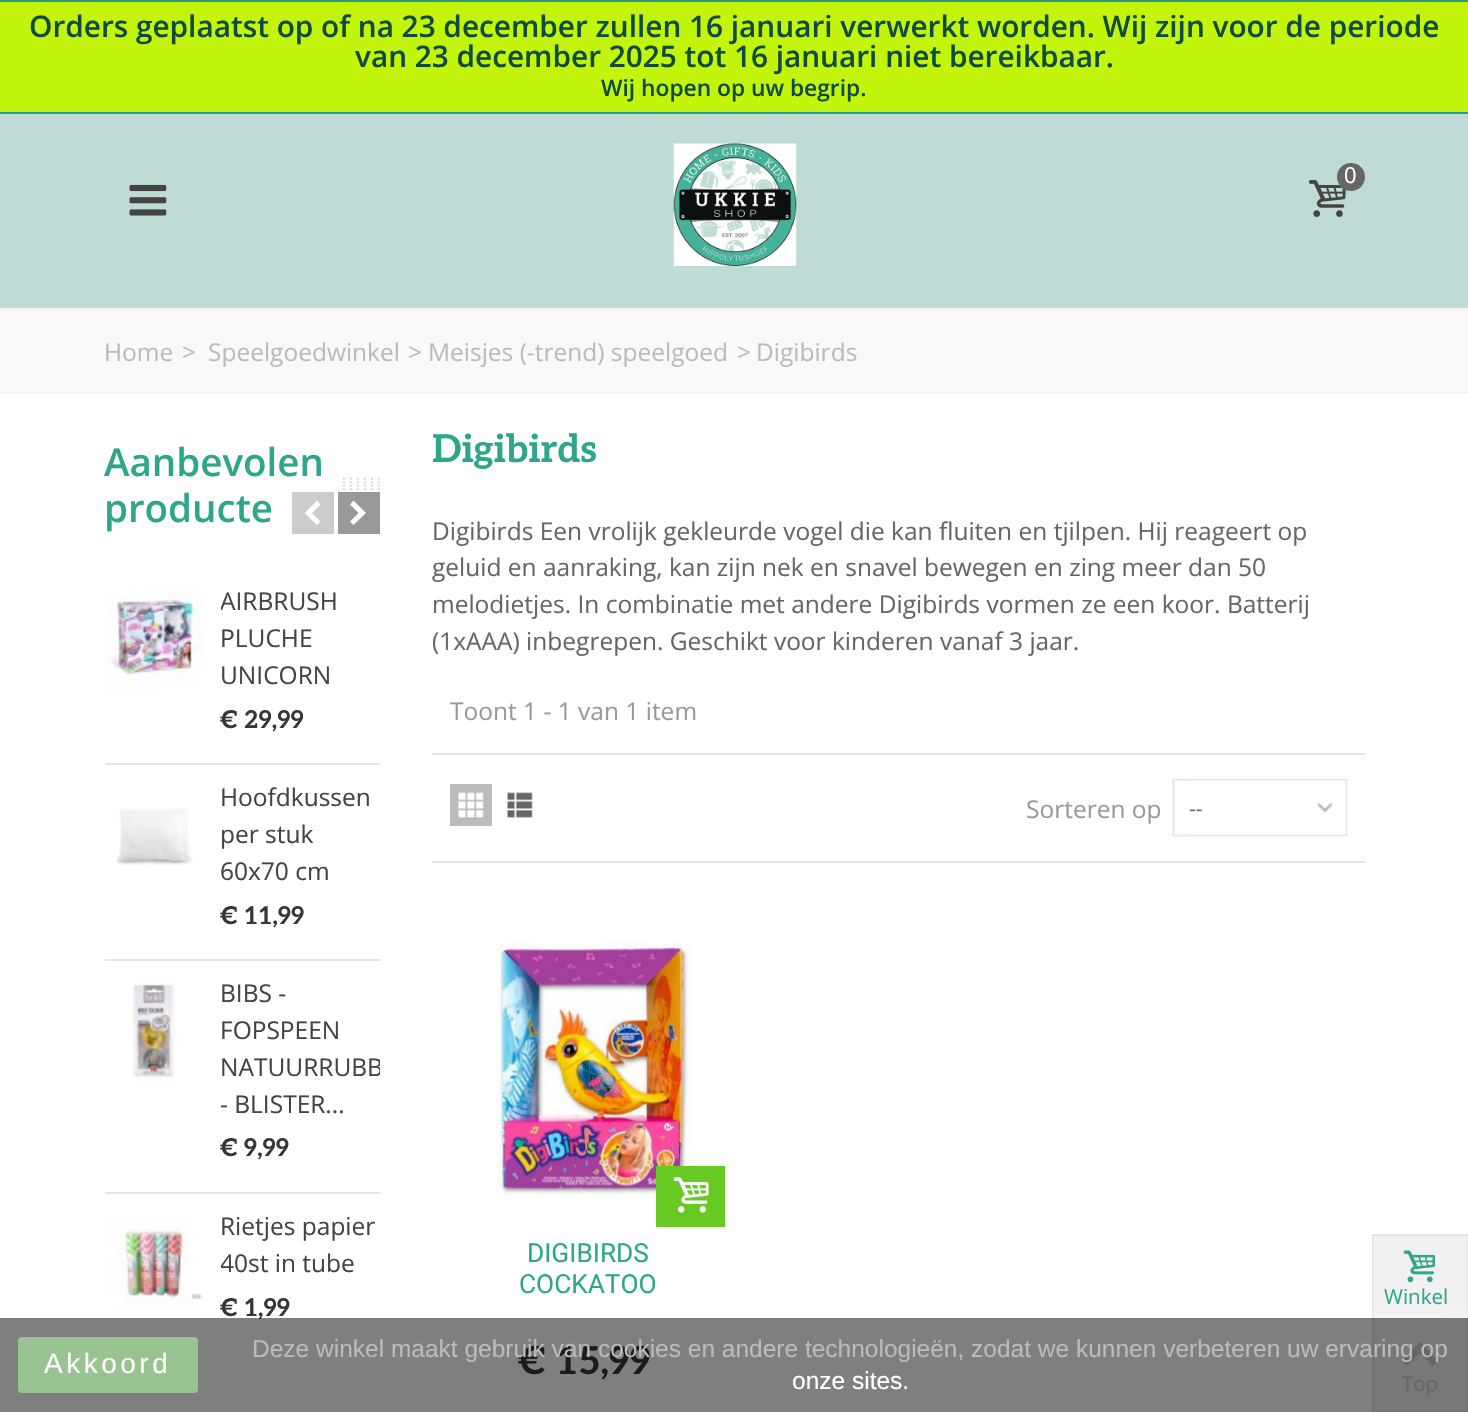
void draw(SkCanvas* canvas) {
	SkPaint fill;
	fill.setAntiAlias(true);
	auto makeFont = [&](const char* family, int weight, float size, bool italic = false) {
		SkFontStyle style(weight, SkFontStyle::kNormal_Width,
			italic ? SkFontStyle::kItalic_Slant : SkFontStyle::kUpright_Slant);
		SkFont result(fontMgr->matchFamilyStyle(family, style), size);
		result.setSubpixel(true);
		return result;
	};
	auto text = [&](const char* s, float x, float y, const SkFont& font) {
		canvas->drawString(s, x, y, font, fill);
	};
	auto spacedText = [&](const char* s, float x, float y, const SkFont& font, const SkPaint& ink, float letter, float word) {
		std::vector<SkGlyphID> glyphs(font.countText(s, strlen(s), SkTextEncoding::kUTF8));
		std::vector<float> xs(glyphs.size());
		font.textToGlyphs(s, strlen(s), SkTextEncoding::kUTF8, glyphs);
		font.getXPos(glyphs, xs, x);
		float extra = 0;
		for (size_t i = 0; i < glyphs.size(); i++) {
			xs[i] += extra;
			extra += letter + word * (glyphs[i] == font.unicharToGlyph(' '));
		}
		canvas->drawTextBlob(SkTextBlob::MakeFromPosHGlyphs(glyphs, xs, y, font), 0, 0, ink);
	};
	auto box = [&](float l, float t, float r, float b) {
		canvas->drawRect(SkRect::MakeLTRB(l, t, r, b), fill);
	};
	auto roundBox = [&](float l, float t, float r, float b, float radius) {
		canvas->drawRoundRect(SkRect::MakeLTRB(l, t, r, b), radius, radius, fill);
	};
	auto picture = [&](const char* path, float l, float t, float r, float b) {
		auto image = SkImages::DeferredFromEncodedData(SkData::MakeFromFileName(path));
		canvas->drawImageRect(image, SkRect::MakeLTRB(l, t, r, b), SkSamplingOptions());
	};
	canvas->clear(0xFFFFFFFF);
	fill.setColor(0xFFBEDCD5);
	box(0, 114, 1468, 308);
	fill.setColor(0xFFC2F40C);
	box(0, 2, 1468, 112);
	fill.setColor(0xFF289B82);
	box(0, 0, 1468, 2);
	box(0, 112, 1468, 114);
	picture("image0.png", 673, 143, 797, 266);
	picture("image1.png", 1308, 180, 1346, 217);
	fill.setColor(0xFF666666);
	canvas->drawCircle(1351, 177, 14, fill);
	picture("image2.png", 129, 184, 167, 216);
	{
		const SkColor colors[] = {0xFFF2F2F2, 0xFFF9F9F9, 0xFFF9F9F9, 0xFFF2F2F2};
		const float stops[] = {0, 0.05f, 0.95f, 1};
		const SkPoint ends[] = {{734, 308}, {734, 394}};
		fill.setShader(SkGradientShader::MakeLinear(ends, colors, stops, 4, SkTileMode::kClamp));
		fill.setAlpha(255);
	}
	box(0, 308, 1468, 394);
	picture("image3.png", 338, 477, 380, 490);
	fill.setShader(nullptr);
	fill.setColor(0xFFCCCCCC);
	box(292, 492, 334, 534);
	fill.setColor(0xFFFFFFFF);
	canvas->drawPath(SkPathBuilder().moveTo(304.5f, 513).lineTo(317, 500.5f).lineTo(320.5f, 504.5f).lineTo(312, 513).lineTo(320.5f, 521.5f).lineTo(317, 525).close().detach(), fill);
	fill.setColor(0xFF999999);
	box(338, 492, 380, 534);
	fill.setColor(0xFFFFFFFF);
	canvas->drawPath(SkPathBuilder().moveTo(350, 521.5f).lineTo(358.5f, 513).lineTo(350, 504.5f).lineTo(353.5f, 500.5f).lineTo(366, 513).lineTo(353.5f, 525).close().detach(), fill);
	fill.setColor(0xFFE5E5E5);
	box(105, 763, 380, 765);
	picture("image4.png", 105, 583, 203, 695);
	box(105, 959, 380, 961);
	picture("image5.png", 116, 808, 193, 865);
	box(105, 1192, 380, 1194);
	picture("image6.png", 132, 977, 189, 1086);
	picture("image7.png", 105, 1218, 203, 1319);
	box(432, 753, 1365, 755);
	box(432, 861, 1365, 863);
	fill.setColor(0xFFBBBBBB);
	box(450, 784, 492, 826);
	picture("image8.png", 458, 792, 484, 818);
	picture("image9.png", 507, 792, 533, 818);
	picture("image10.png", 1172, 778, 1191, 837);
	picture("image11.png", 1190, 779, 1348, 837);
	picture("image12.png", 496, 942, 693, 1197);
	fill.setColor(0xFF66CA22);
	box(656, 1166, 725, 1227);
	picture("image13.png", 673, 1177, 709, 1213);
	fill.setColor(0xFFF1F1F1);
	box(1374, 1236, 1467, 1411);
	fill.setColor(0xFFE5E5E5);
	box(1372, 1234, 1468, 1236);
	box(1467, 1234, 1468, 1412);
	box(1372, 1411, 1468, 1412);
	box(1372, 1236, 1374, 1411);
	fill.setColor(0xFFCCCCCC);
	canvas->drawPath(SkPathBuilder().moveTo(1402, 1360.5f).lineTo(1420, 1342).lineTo(1438.5f, 1360.5f).lineTo(1433, 1366).lineTo(1420, 1353).lineTo(1407, 1366).close().detach(), fill);
	canvas->save();
	canvas->clipRect(SkRect::MakeLTRB(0, 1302, 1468, 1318));
	fill.setColor(0x80FFFFFF);
	fill.setMaskFilter(SkMaskFilter::MakeBlur(kNormal_SkBlurStyle, 9));
	canvas->drawRect(SkRect::MakeLTRB(0, 1318, 1468, 1412), fill);
	fill.setMaskFilter(nullptr);
	canvas->restore();
	picture("image14.png", 1403, 1250, 1436, 1283);
	auto font1 = makeFont("Open Sans", 600, 29.75f);
	fill.setColor(0xFF114A3E);
	text("Orders geplaatst op of na 23 december zullen 16 januari verwerkt worden. Wij zijn voor de periode", 29, 37, font1);
	text("van 23 december 2025 tot 16 januari niet bereikbaar.", 355, 67, font1);
	auto font2 = makeFont("Open Sans", 600, 22.75f);
	text("Wij hopen op uw begrip.", 601, 96, font2);
	auto font3 = makeFont("Open Sans", 400, 22);
	fill.setColor(0xFFFFFFFF);
	text("0", 1344, 183, font3);
	auto font4 = makeFont("Open Sans", 400, 24.5f);
	fill.setColor(0xFFBBBBBB);
	text("Home", 104, 361, font4);
	text(">", 182, 361, font4);
	text("Speelgoedwinkel", 208, 361, font4);
	text(">", 408, 361, font4);
	text("Meisjes (-trend) speelgoed", 428, 361, font4);
	text(">", 737, 361, font4);
	text("Digibirds", 756, 361, font4);
	auto font5 = makeFont("Open Sans", 600, 38.5f);
	fill.setColor(0xFF2DA68B);
	text("Aanbevolen", 104, 476, font5);
	text("producte", 104, 522, font5);
	canvas->save();
	canvas->clipRect(SkRect::MakeLTRB(221, 583, 380, 693));
	fill.setColor(0xFF444444);
	text("AIRBRUSH", 220, 610, font4);
	canvas->restore();
	text("PLUCHE", 220, 647, font4);
	text("UNICORN", 220, 684, font4);
	auto font6 = makeFont("Aleo", 700, 24.5f);
	fill.setColor(0xFF373737);
	text("€ 29,99", 220, 728, font6);
	fill.setColor(0xFF444444);
	text("Hoofdkussen", 220, 806, font4);
	text("per stuk", 220, 843, font4);
	text("60x70 cm", 220, 880, font4);
	fill.setColor(0xFF373737);
	text("€ 11,99", 220, 924, font6);
	fill.setColor(0xFF444444);
	text("BIBS -", 220, 1002, font4);
	text("FOPSPEEN", 220, 1039, font4);
	canvas->save();
	canvas->clipRect(SkRect::MakeLTRB(221, 975, 380, 1122));
	text("NATUURRUBB", 220, 1076, font4);
	text("- BLISTER...", 220, 1113, font4);
	canvas->restore();
	fill.setColor(0xFF373737);
	text("€ 9,99", 220, 1156, font6);
	fill.setColor(0xFF444444);
	text("Rietjes papier", 220, 1235, font4);
	canvas->save();
	canvas->clipRect(SkRect::MakeLTRB(221, 1208, 380, 1281));
	text("40st in tube", 220, 1272, font4);
	canvas->restore();
	fill.setColor(0xFF373737);
	text("€ 1,99", 220, 1316, font6);
	auto font7 = makeFont("Aleo", 700, 38.5f);
	fill.setColor(0xFF2DA68B);
	text("Digibirds", 432, 462, font7);
	fill.setColor(0xFF666666);
	text("Digibirds Een vrolijk gekleurde vogel die kan fluiten en tjilpen. Hij reageert op", 432, 540, font4);
	text("geluid en aanraking, kan zijn nek en snavel bewegen en zing meer dan 50", 432, 576, font4);
	text("melodietjes. In combinatie met andere Digibirds vormen ze een koor. Batterij", 432, 613, font4);
	text("(1xAAA) inbegrepen. Geschikt voor kinderen vanaf 3 jaar.", 432, 650, font4);
	fill.setColor(0xFF999999);
	text("Toont 1 - 1 van 1 item", 450, 720, font4);
	text("Sorteren op", 1026, 818, font4);
	auto font8 = makeFont("Open Sans", 400, 21);
	fill.setColor(0xFF666666);
	text("--", 1189, 816, font8);
	auto font9 = makeFont("Roboto", 400, 26.25f);
	fill.setColor(0xFF2DA68B);
	text("DIGIBIRDS", 527, 1262, font9);
	text("COCKATOO", 519, 1293, font9);
	fill.setColor(0xFF373737);
	text("€ 15,99", 518, 1374, font7);
	auto font10 = makeFont("Open Sans", 400, 20.5f);
	fill.setColor(0xFF2DA68B);
	text("Winkel", 1384, 1304, font10);
	fill.setColor(0xFFCCCCCC);
	text("Top", 1402, 1391, font10);
	fill.setColor(0x80000000);
	box(0, 1318, 1468, 1412);
	auto font11 = makeFont("Liberation Sans", 400, 24.5f);
	fill.setColor(0xFFFFFFFF);
	text("onze sites.", 792, 1389, font11);
	fill.setColor(0xFFBBBBBB);
	text("Deze winkel maakt gebruik van cookies en andere technologieën, zodat we kunnen verbeteren uw ervaring op", 252, 1357, font11);
	fill.setColor(0xFF9AC392);
	roundBox(18, 1337, 198, 1393, 4);
	auto font12 = makeFont("Liberation Sans", 400, 28);
	fill.setColor(0xFFFFFFFF);
	spacedText("Akkoord", 44, 1373, font12, fill, 3.5f, 0);
}
